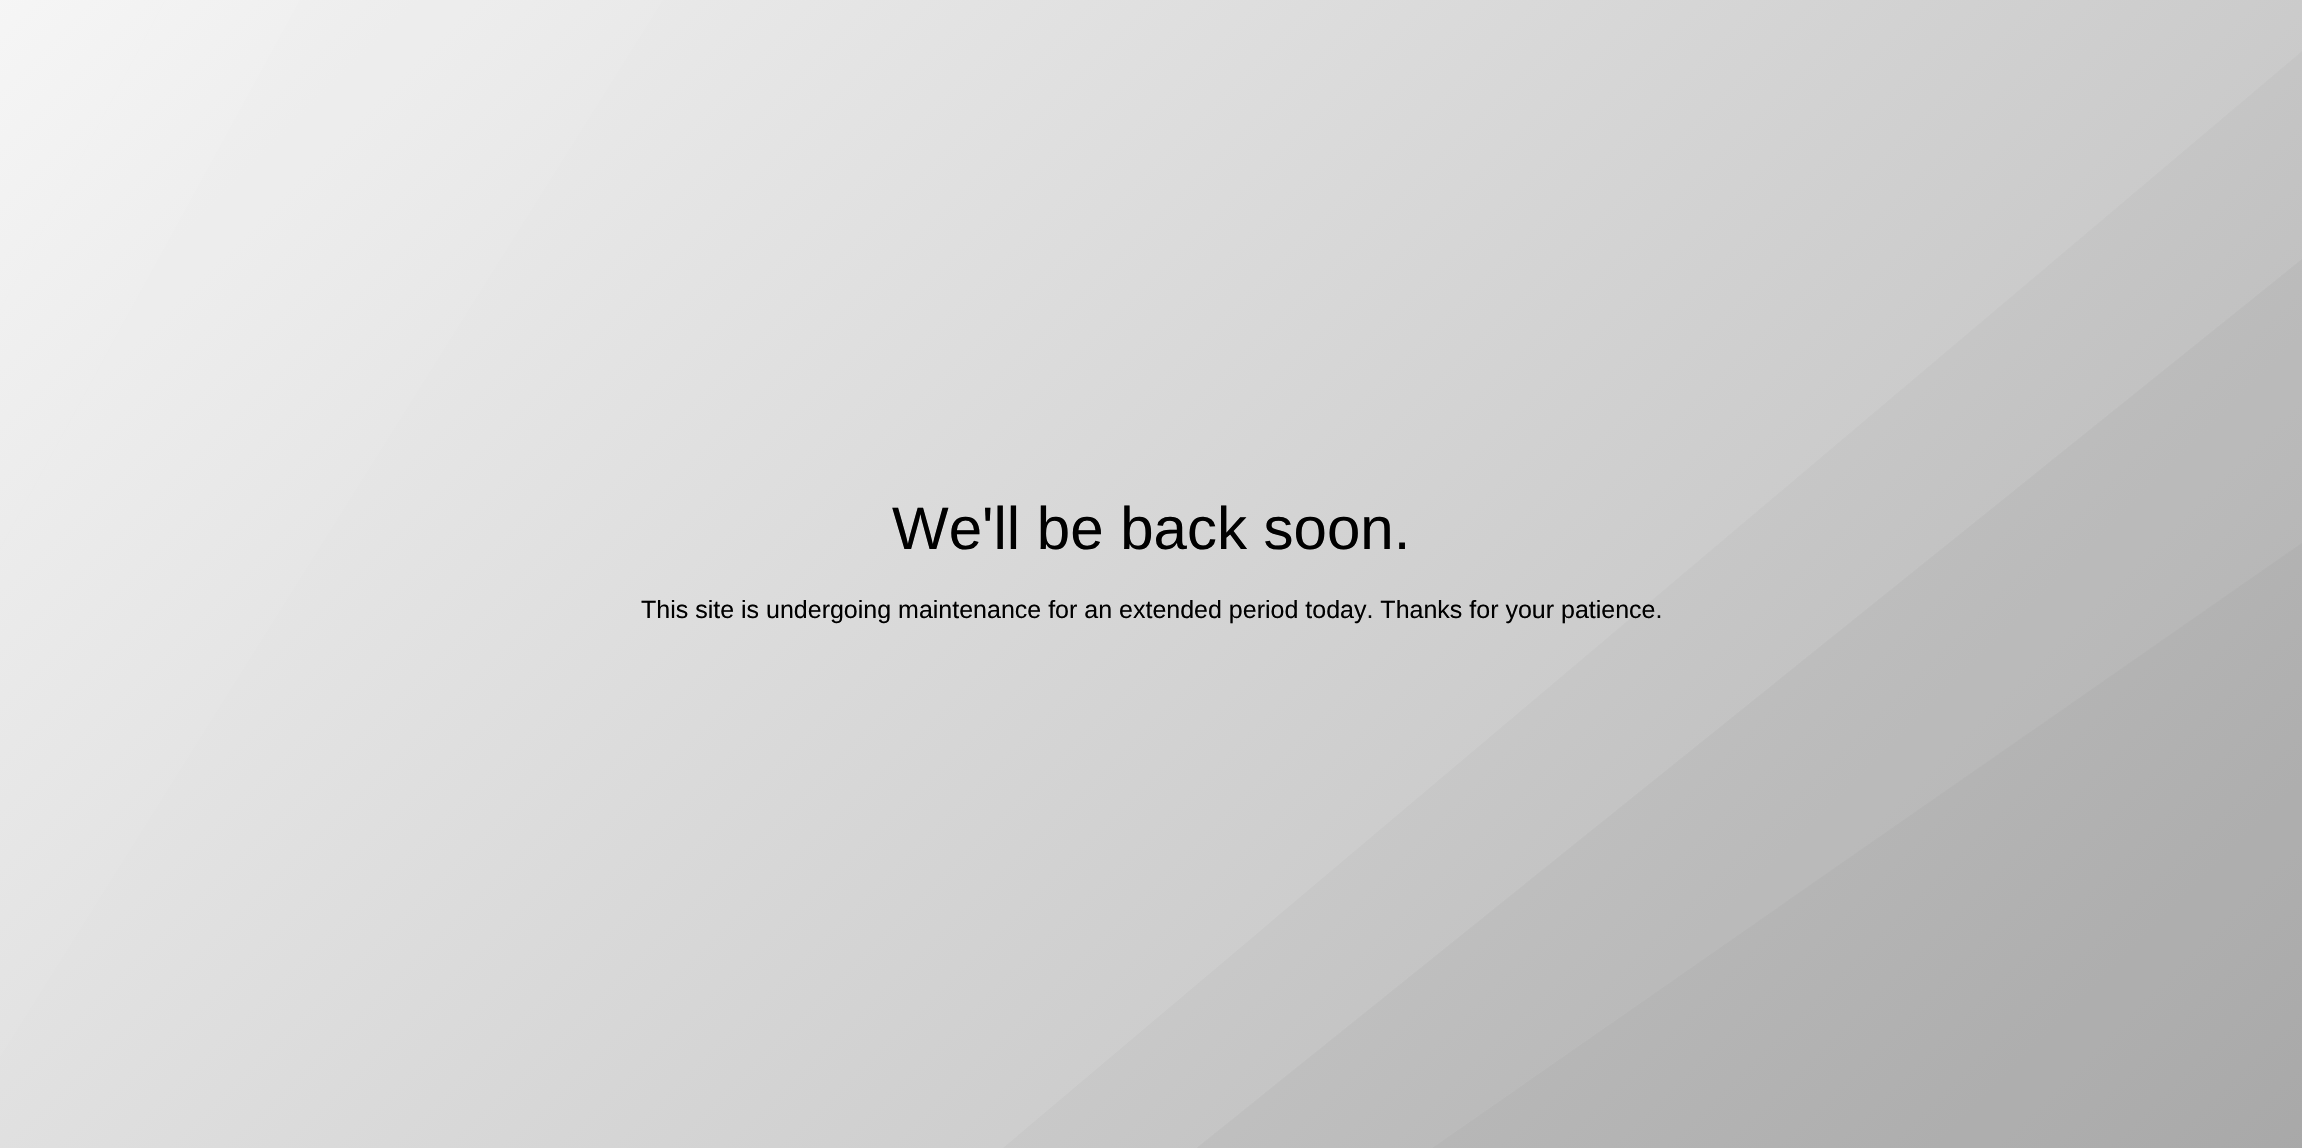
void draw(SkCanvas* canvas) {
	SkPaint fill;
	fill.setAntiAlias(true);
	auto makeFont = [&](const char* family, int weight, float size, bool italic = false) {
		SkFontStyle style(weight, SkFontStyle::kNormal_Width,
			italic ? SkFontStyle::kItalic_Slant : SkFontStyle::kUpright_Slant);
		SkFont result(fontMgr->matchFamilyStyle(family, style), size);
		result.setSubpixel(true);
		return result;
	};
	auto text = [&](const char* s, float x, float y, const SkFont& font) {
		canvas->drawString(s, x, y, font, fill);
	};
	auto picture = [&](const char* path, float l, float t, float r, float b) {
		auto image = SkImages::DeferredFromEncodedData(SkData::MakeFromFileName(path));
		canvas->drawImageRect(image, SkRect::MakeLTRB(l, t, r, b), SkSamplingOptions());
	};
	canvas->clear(0xFFFFFFFF);
	picture("image0.png", 0, 0, 2302, 1148);
	auto font1 = makeFont("Liberation Sans", 400, 60);
	fill.setColor(0xFF000000);
	text("We'll be back soon.", 892, 549, font1);
	auto font2 = makeFont("Liberation Sans", 400, 25);
	text("This site is undergoing maintenance for an extended period today. Thanks for your patience.", 641, 618, font2);
}
